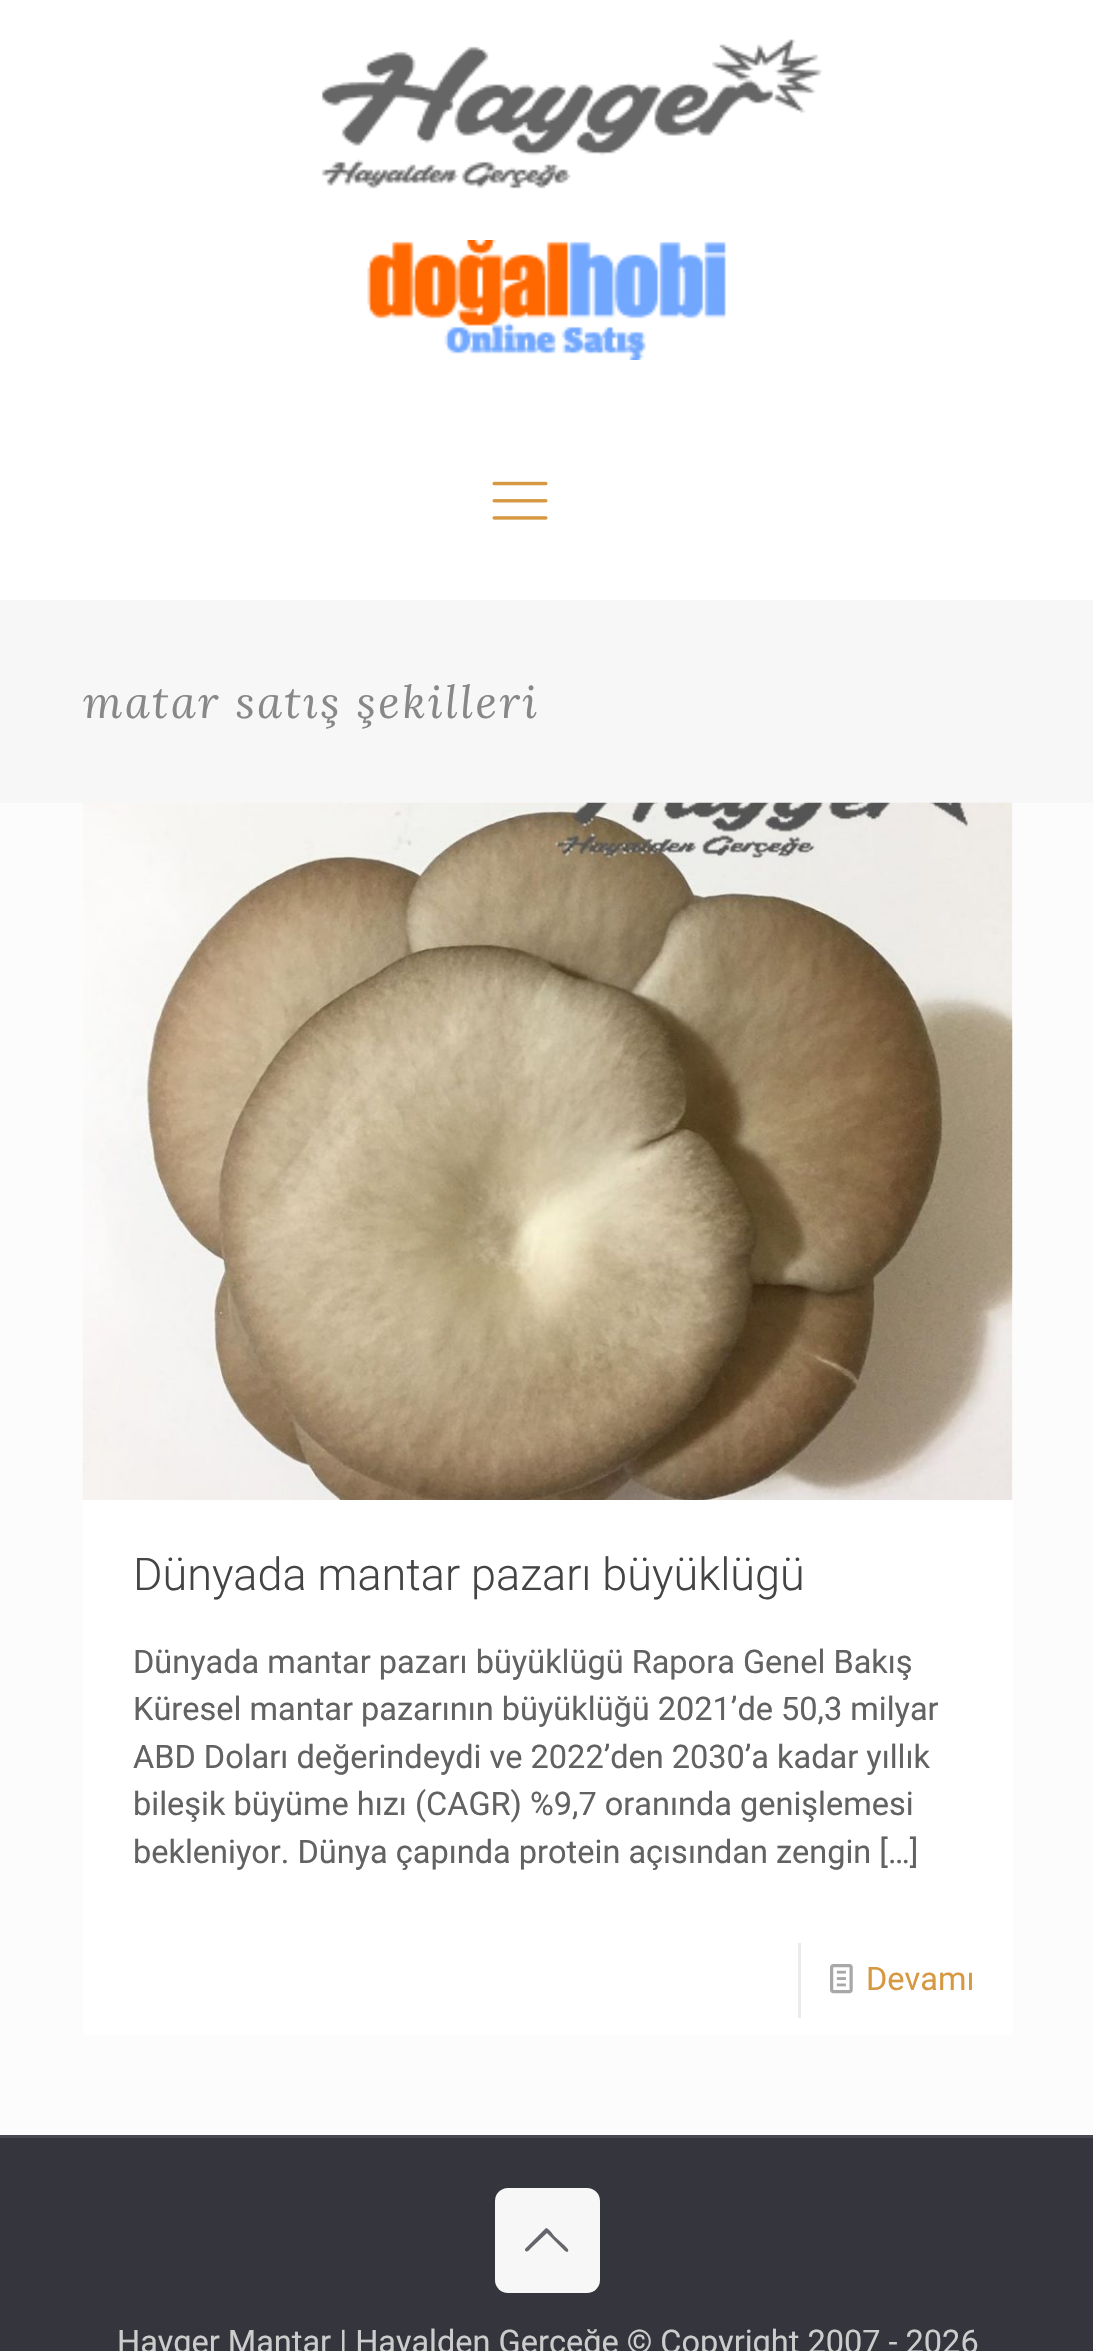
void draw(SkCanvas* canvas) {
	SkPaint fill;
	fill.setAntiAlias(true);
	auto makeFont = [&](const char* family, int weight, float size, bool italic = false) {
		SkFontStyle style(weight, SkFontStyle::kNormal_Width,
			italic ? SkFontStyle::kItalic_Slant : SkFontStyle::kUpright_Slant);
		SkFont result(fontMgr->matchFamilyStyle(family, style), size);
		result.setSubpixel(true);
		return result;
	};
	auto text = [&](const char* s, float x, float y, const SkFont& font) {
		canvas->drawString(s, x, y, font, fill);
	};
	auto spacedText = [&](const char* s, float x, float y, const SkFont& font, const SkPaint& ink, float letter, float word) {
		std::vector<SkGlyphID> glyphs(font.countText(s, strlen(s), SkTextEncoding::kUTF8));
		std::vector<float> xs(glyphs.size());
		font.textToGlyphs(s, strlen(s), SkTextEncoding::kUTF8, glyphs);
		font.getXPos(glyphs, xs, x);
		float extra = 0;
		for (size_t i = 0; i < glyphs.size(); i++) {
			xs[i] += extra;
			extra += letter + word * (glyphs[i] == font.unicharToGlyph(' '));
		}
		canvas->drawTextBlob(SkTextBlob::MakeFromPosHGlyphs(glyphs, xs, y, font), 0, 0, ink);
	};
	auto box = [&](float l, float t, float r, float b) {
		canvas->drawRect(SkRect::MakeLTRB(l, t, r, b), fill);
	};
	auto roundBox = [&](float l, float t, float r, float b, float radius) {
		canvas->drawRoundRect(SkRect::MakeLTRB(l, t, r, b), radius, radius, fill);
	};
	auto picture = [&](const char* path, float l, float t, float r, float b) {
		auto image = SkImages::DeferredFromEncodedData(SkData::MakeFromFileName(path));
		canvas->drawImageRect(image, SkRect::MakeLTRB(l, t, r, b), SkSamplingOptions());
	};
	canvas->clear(0xFFFCFCFC);
	fill.setColor(0xFFFFFFFF);
	box(0, 0, 1093, 600);
	picture("image0.png", 321, 39, 823, 189);
	picture("image1.png", 367, 240, 726, 360);
	picture("image2.png", 492, 481, 548, 520);
	fill.setColor(0xFFF7F7F7);
	box(0, 600, 1093, 803);
	fill.setColor(0xFFFFFFFF);
	box(83, 803, 1013, 2035);
	picture("image3.png", 82, 802, 1013, 1500);
	fill.setColor(0xFFEBEBEB);
	box(798, 1943, 801, 2018);
	picture("image4.png", 830, 1964, 853, 1994);
	fill.setColor(0xFF34353D);
	box(0, 2138, 1093, 2351);
	fill.setColor(0xFF484950);
	box(0, 2135, 1093, 2138);
	fill.setColor(0xFFF7F7F7);
	roundBox(495, 2188, 600, 2293, 13);
	fill.setColor(0xFF65666C);
	canvas->drawPath(SkPathBuilder().moveTo(565, 2251).lineTo(547, 2233).lineTo(531, 2248).cubicTo(530, 2249, 527, 2254, 525, 2250).lineTo(525, 2249).lineTo(546, 2228).cubicTo(548, 2228, 553, 2234, 554, 2236).lineTo(564, 2245).cubicTo(565, 2246, 571, 2251, 567, 2252).close().detach(), fill);
	auto font1 = makeFont("Lora", 400, 45, true);
	fill.setColor(0xFF888888);
	spacedText("matar satış şekilleri", 83, 718, font1, fill, 2.5f, 0);
	auto font2 = makeFont("Roboto", 300, 45);
	fill.setColor(0xFF444444);
	text("Dünyada mantar pazarı büyüklügü", 133, 1590, font2);
	auto font3 = makeFont("Roboto", 400, 32.5f);
	fill.setColor(0xFF626262);
	text("Dünyada mantar pazarı büyüklügü Rapora Genel Bakış", 133, 1673, font3);
	text("Küresel mantar pazarının büyüklüğü 2021’de 50,3 milyar", 133, 1720, font3);
	text("ABD Doları değerindeydi ve 2022’den 2030’a kadar yıllık", 133, 1768, font3);
	text("bileşik büyüme hızı (CAGR) %9,7 oranında genişlemesi", 133, 1815, font3);
	text("bekleniyor. Dünya çapında protein açısından zengin […]", 133, 1863, font3);
	fill.setColor(0xFFD69942);
	text("Devamı", 866, 1990, font3);
	fill.setColor(0xFFCCCCCC);
	text("Hayger Mantar | Hayalden Gerçeğe © Copyright 2007 - 2026", 117, 2353, font3);
}
